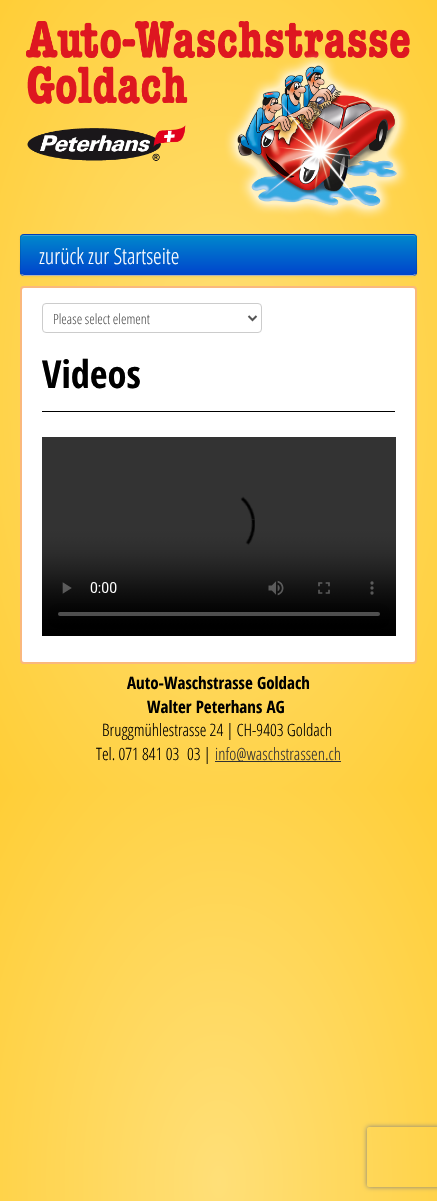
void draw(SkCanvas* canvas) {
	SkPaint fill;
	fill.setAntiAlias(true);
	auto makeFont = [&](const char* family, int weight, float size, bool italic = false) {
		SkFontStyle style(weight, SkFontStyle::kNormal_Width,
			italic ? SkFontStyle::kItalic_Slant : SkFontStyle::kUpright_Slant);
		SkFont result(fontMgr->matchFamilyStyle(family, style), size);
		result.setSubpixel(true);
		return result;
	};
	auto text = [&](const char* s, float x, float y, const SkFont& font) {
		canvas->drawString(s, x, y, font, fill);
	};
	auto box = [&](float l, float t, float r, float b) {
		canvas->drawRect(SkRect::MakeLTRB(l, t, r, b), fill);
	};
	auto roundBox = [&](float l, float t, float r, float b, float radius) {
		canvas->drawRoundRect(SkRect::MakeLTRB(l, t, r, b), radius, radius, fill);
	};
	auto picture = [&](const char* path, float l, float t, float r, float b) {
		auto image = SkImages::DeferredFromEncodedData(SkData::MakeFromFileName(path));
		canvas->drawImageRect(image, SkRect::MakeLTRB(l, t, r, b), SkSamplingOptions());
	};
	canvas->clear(0xFFFFFFFF);
	{
		const SkColor colors[] = {0xFFFFDF78, 0xFFFFCE37};
		const float stops[] = {0, 1};
		SkMatrix m = SkMatrix::Translate(219, 394).preScale(309, 557);
		fill.setShader(SkGradientShader::MakeRadial({0, 0}, 1, colors, stops, 2, SkTileMode::kClamp, 0, &m));
		fill.setAlpha(255);
	}
	box(0, 0, 437, 788);
	{
		const SkColor colors[] = {0xFFFFDF78, 0xFFFFCE37};
		const float stops[] = {0, 1};
		SkMatrix m = SkMatrix::Translate(219, 1182).preScale(309, 557);
		fill.setShader(SkGradientShader::MakeRadial({0, 0}, 1, colors, stops, 2, SkTileMode::kClamp, 0, &m));
		fill.setAlpha(255);
	}
	box(0, 788, 437, 1201);
	picture("image0.png", 26, 21, 410, 219);
	fill.setShader(nullptr);
	fill.setColor(0x0D000000);
	fill.setMaskFilter(SkMaskFilter::MakeBlur(kNormal_SkBlurStyle, 1));
	canvas->drawRoundRect(SkRect::MakeLTRB(20, 235, 417, 277), 4, 4, fill);
	fill.setMaskFilter(nullptr);
	fill.setColor(0xFF0044CC);
	roundBox(20, 234, 417, 276, 4);
	canvas->save();
	canvas->clipPath(SkPathBuilder().moveTo(24, 234).lineTo(413, 234).cubicTo(415, 234, 417, 236, 417, 238).lineTo(417, 272).cubicTo(417, 274, 415, 276, 413, 276).lineTo(24, 276).cubicTo(22, 276, 20, 274, 20, 272).lineTo(20, 238).cubicTo(20, 236, 22, 234, 24, 234).close().detach(), true);
	{
		const SkColor colors[] = {0xFF0088CC, 0xFF0044CC};
		const float stops[] = {0, 1};
		const SkPoint ends[] = {{219, 235}, {219, 275}};
		fill.setShader(SkGradientShader::MakeLinear(ends, colors, stops, 2, SkTileMode::kClamp));
		fill.setAlpha(255);
	}
	box(20, 235, 417, 275);
	canvas->restore();
	fill.setShader(nullptr);
	fill.setColor(0xFF339FD6);
	canvas->drawPath(SkPathBuilder().moveTo(24, 236).lineTo(413, 236).cubicTo(415, 236, 416, 237, 416, 239).cubicTo(416, 237, 415, 235, 413, 235).lineTo(24, 235).lineTo(22, 236).lineTo(21, 239).cubicTo(21, 237, 22, 236, 24, 236).close().detach(), fill);
	fill.setStyle(SkPaint::kStroke_Style);
	fill.setStrokeWidth(1);
	fill.setColor(0xFFB3B3B3);
	canvas->drawPath(SkPathBuilder().moveTo(415.5f, 274.5f).lineTo(413, 275.5f).lineTo(24, 275.5f).lineTo(21.5f, 274.5f).detach(), fill);
	fill.setColor(0x1A000000);
	canvas->drawPath(SkPathBuilder().moveTo(21.5f, 274.5f).cubicTo(19, 272, 20.5f, 263.5f, 20.5f, 260.5f).lineTo(20.5f, 243.5f).cubicTo(20.5f, 241, 19.5f, 234.5f, 24, 234.5f).lineTo(413, 234.5f).cubicTo(417.5f, 234.5f, 416.5f, 241, 416.5f, 243.5f).lineTo(416.5f, 260.5f).cubicTo(416.5f, 263.5f, 418, 272, 415.5f, 274.5f).detach(), fill);
	fill.setStyle(SkPaint::kFill_Style);
	fill.setColor(0xFFFFFFFF);
	canvas->drawRoundRect(SkRect::MakeLTRB(21, 287, 416, 663), 3, 3, fill);
	fill.setStyle(SkPaint::kStroke_Style);
	fill.setStrokeWidth(2);
	fill.setColor(0xFFFAB87D);
	canvas->drawRoundRect(SkRect::MakeLTRB(21, 287, 416, 663), 3, 3, fill);
	fill.setStrokeWidth(1);
	fill.setColor(0xFFCCCCCC);
	canvas->drawRoundRect(SkRect::MakeLTRB(42.5f, 303.5f, 261.5f, 332.5f), 3.5f, 3.5f, fill);
	fill.setStrokeWidth(2);
	fill.setColor(0xFF555555);
	canvas->drawPath(SkPathBuilder().moveTo(248.5f, 316).lineTo(252.5f, 320).lineTo(256.5f, 316).detach(), fill);
	fill.setStyle(SkPaint::kFill_Style);
	fill.setColor(0xFF000000);
	box(42, 411, 395, 412);
	picture("image1.png", 42, 437, 396, 636);
	fill.setColor(0xFF333333);
	box(215, 761, 341, 762);
	canvas->save();
	canvas->clipPath(SkPathBuilder(SkPathFillType::kEvenOdd).moveTo(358, 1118).lineTo(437, 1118).lineTo(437, 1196).lineTo(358, 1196).close().moveTo(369, 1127).lineTo(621, 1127).cubicTo(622, 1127, 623, 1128, 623, 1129).lineTo(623, 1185).cubicTo(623, 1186, 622, 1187, 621, 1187).lineTo(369, 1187).cubicTo(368, 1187, 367, 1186, 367, 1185).lineTo(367, 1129).cubicTo(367, 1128, 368, 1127, 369, 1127).close().detach(), true);
	fill.setColor(0xFF808080);
	fill.setMaskFilter(SkMaskFilter::MakeBlur(kNormal_SkBlurStyle, 2.5f));
	canvas->drawRoundRect(SkRect::MakeLTRB(367, 1127, 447, 1187), 2, 2, fill);
	fill.setMaskFilter(nullptr);
	canvas->restore();
	auto font1 = makeFont("Open Sans Condensed", 300, 22);
	fill.setColor(0xFFFFFFFF);
	text("zurück zur Startseite", 39, 264, font1);
	auto font2 = makeFont("Open Sans Condensed", 300, 14);
	fill.setColor(0xFF555555);
	text("Please select element", 53, 324, font2);
	auto font3 = makeFont("Open Sans Condensed", 700, 38.5f);
	fill.setColor(0xFF000000);
	text("Videos", 42, 388, font3);
	auto font4 = makeFont("Open Sans Condensed", 700, 17);
	text("Auto-Waschstrasse Goldach", 127, 689, font4);
	text("Walter Peterhans AG", 147, 713, font4);
	auto font5 = makeFont("Open Sans Condensed", 300, 17);
	text("Bruggmühlestrasse 24 | CH-9403 Goldach", 102, 736, font5);
	text("Tel. 071 841 03", 96, 760, font5);
	text("03 |", 187, 760, font5);
	fill.setColor(0xFF333333);
	text("info@waschstrassen.ch", 215, 760, font5);
}
